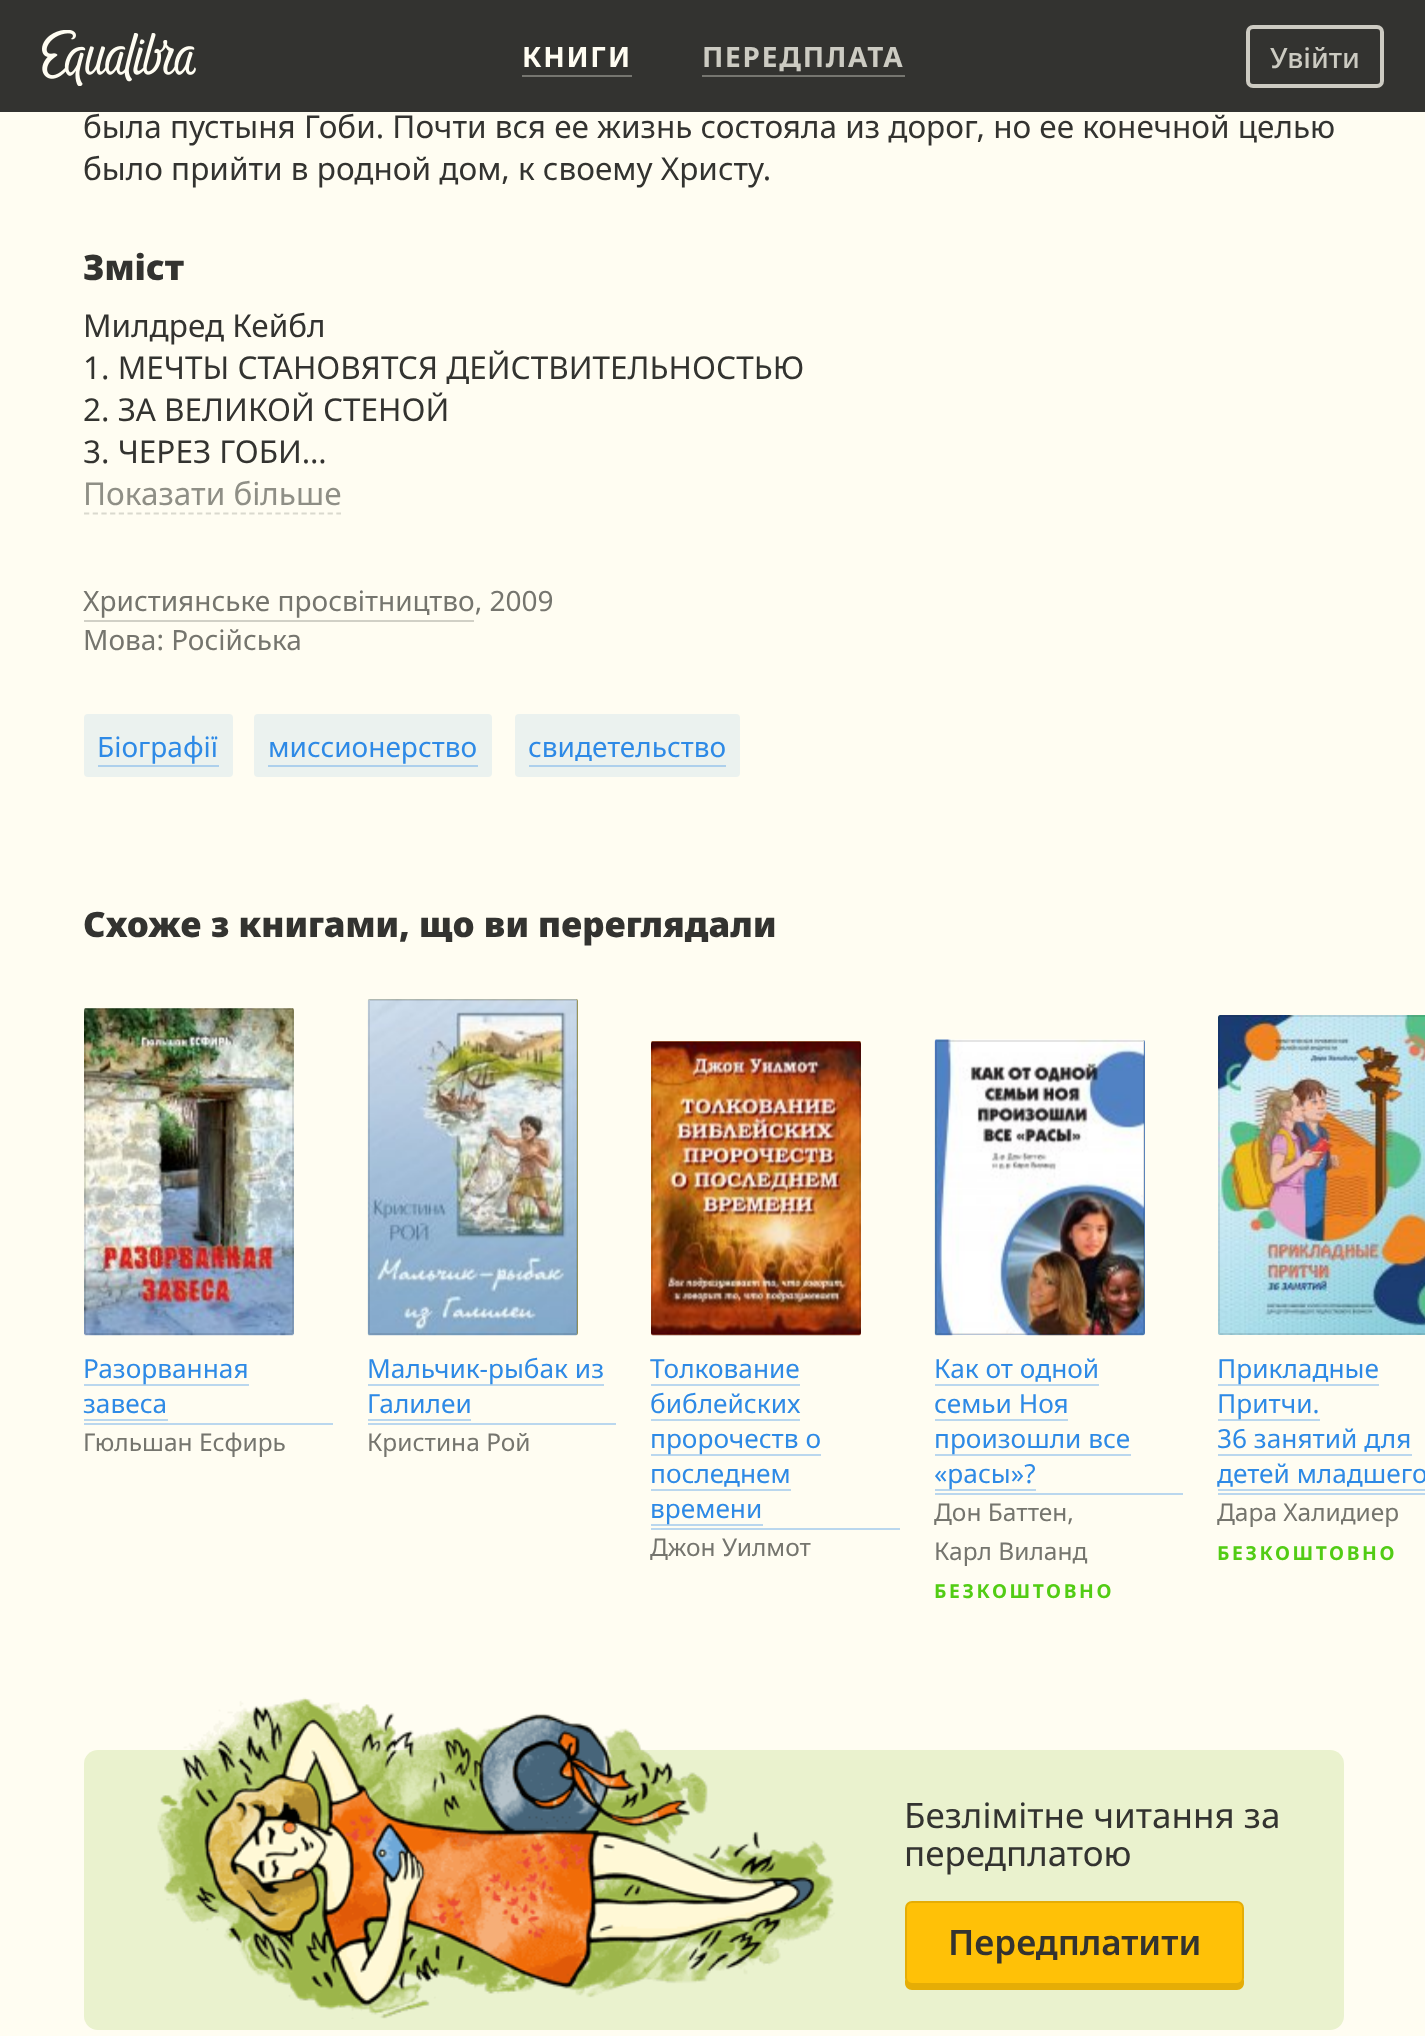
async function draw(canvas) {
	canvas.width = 1425;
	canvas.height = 2036;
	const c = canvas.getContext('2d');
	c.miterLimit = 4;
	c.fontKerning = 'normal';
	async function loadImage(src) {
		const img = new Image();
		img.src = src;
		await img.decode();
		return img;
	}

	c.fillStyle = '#fffdf2';
	c.fillRect(0, 0, 1425, 2036);
	c.fillStyle = '#333330';
	c.fillRect(0, 0, 1425, 112);
	c.drawImage(await loadImage('img1.png'), 42, 30, 154, 56);
	c.fillStyle = '#767670';
	c.fillRect(522, 75, 110, 2);
	c.letterSpacing = '1.75px';
	c.font = 'bold 28px Noto Sans';
	c.fillStyle = '#fffdf2';
	c.fillText('КНИГИ', 522, 67);
	c.fillStyle = '#767670';
	c.fillRect(702, 75, 203, 2);
	c.fillStyle = '#cccbc2';
	c.fillText('ПЕРЕДПЛАТА', 702, 67);
	c.beginPath();
	c.roundRect(1248, 27, 134, 59, 5);
	c.strokeStyle = '#cdcbc2';
	c.lineWidth = 4;
	c.stroke();
	c.letterSpacing = '0px';
	c.font = '500 28px Noto Sans';
	c.fillText('Увійти', 1270, 68);
	c.font = '31.5px Noto Sans';
	c.fillStyle = '#333330';
	c.fillText('была пустыня Гоби. Почти вся ее жизнь состояла из дорог, но ее конечной целью', 83, 138);
	c.fillText('было прийти в родной дом, к своему Христу.', 83, 180);
	c.font = '900 35px Noto Sans';
	c.fillText('Зміст', 83, 280);
	c.font = '31.5px Noto Sans';
	for (const [text, x, y] of [
		['Милдред Кейбл', 83, 337],
		['1. МЕЧТЫ СТАНОВЯТСЯ ДЕЙСТВИТЕЛЬНОСТЬЮ', 83, 379],
		['2. ЗА ВЕЛИКОЙ СТЕНОЙ', 83, 421],
		['3. ЧЕРЕЗ ГОБИ…', 83, 463],
	]) {
		c.fillText(text, x, y);
	}
	c.fillStyle = '#8f8f86';
	c.fillText('Показати більше', 83, 505);
	c.beginPath();
	c.moveTo(84, 513.5);
	c.lineTo(341, 513.5);
	c.strokeStyle = '#dad9ce';
	c.lineWidth = 1.8;
	c.setLineDash([5.25, 3.45]);
	c.stroke();
	c.font = '28px Noto Sans';
	c.fillStyle = '#75756e';
	c.fillText('Християнське просвітництво, 2009', 83, 611);
	c.fillStyle = '#d1d0c6';
	c.fillRect(84, 620, 390, 2);
	c.fillStyle = '#75756e';
	c.fillText('Мова: Російська', 83, 650);
	c.fillStyle = '#ebf2ef';
	c.beginPath();
	c.roundRect(84, 714, 149, 63, 4);
	c.fill();
	c.fillStyle = '#2e8ae6';
	c.fillText('Біографії', 97, 757);
	c.fillStyle = '#add0ec';
	c.fillRect(98, 765, 121, 2);
	c.fillStyle = '#ebf2ef';
	c.beginPath();
	c.roundRect(254, 714, 238, 63, 4);
	c.fill();
	c.fillStyle = '#2e8ae6';
	c.fillText('миссионерство', 268, 757);
	c.fillStyle = '#add0ec';
	c.fillRect(268, 765, 210, 2);
	c.fillStyle = '#ebf2ef';
	c.beginPath();
	c.roundRect(515, 714, 225, 63, 4);
	c.fill();
	c.fillStyle = '#2e8ae6';
	c.fillText('свидетельство', 528, 757);
	c.fillStyle = '#add0ec';
	c.fillRect(529, 765, 197, 2);
	c.font = '900 35px Noto Sans';
	c.fillStyle = '#333330';
	c.fillText('Схоже з книгами, що ви переглядали', 83, 937);
	c.drawImage(await loadImage('img2.png'), 84, 1008, 210, 328);
	c.beginPath();
	c.roundRect(85, 1009, 208, 325, 1);
	c.strokeStyle = '#0000001a';
	c.lineWidth = 2;
	c.setLineDash([]);
	c.stroke();
	c.fillStyle = '#bad7ee';
	c.fillRect(84, 1384, 165, 2);
	c.font = '26.25px Noto Sans';
	c.fillStyle = '#2e8ae6';
	c.fillText('Разорванная', 83, 1378);
	c.fillText('завеса', 83, 1413);
	c.fillStyle = '#bad7ee';
	c.fillRect(84, 1419, 84, 2);
	c.fillRect(84, 1423, 249, 2);
	c.font = '24.5px Noto Sans';
	c.fillStyle = '#75756e';
	c.fillText('Гюльшан Есфирь', 83, 1451);
	c.fillStyle = '#a69f51';
	c.beginPath();
	c.roundRect(368, 999, 210, 336, 2);
	c.fill();
	c.drawImage(await loadImage('img3.png'), 367, 999, 211, 337);
	c.beginPath();
	c.roundRect(369, 1000, 208, 334, 1);
	c.stroke();
	c.fillStyle = '#bad7ee';
	c.fillRect(368, 1384, 236, 2);
	c.font = '26.25px Noto Sans';
	c.fillStyle = '#2e8ae6';
	c.fillText('Мальчик-рыбак из', 367, 1378);
	c.fillText('Галилеи', 367, 1413);
	c.fillStyle = '#bad7ee';
	c.fillRect(368, 1419, 103, 2);
	c.fillRect(368, 1423, 248, 2);
	c.font = '24.5px Noto Sans';
	c.fillStyle = '#75756e';
	c.fillText('Кристина Рой', 367, 1451);
	c.fillStyle = '#e9a660';
	c.beginPath();
	c.roundRect(651, 1041, 210, 294, 2);
	c.fill();
	c.drawImage(await loadImage('img4.png'), 651, 1041, 210, 295);
	c.beginPath();
	c.roundRect(652, 1042, 208, 292, 1);
	c.stroke();
	c.font = '26.25px Noto Sans';
	c.fillStyle = '#2e8ae6';
	c.fillText('Толкование', 650, 1378);
	c.fillStyle = '#bad7ee';
	c.fillRect(651, 1384, 149, 2);
	c.fillStyle = '#2e8ae6';
	c.fillText('библейских', 650, 1413);
	c.fillStyle = '#bad7ee';
	c.fillRect(651, 1419, 149, 2);
	c.fillRect(651, 1454, 170, 2);
	c.fillStyle = '#2e8ae6';
	c.fillText('пророчеств о', 650, 1448);
	c.fillText('последнем', 650, 1483);
	c.fillStyle = '#bad7ee';
	c.fillRect(651, 1489, 140, 2);
	c.fillRect(651, 1524, 112, 2);
	c.fillStyle = '#2e8ae6';
	c.fillText('времени', 650, 1518);
	c.fillStyle = '#bad7ee';
	c.fillRect(651, 1528, 249, 2);
	c.font = '24.5px Noto Sans';
	c.fillStyle = '#75756e';
	c.fillText('Джон Уилмот', 650, 1556);
	c.fillStyle = '#5183c8';
	c.beginPath();
	c.roundRect(935, 1040, 210, 295, 2);
	c.fill();
	c.drawImage(await loadImage('img5.png'), 934, 1039, 211, 297);
	c.beginPath();
	c.roundRect(936, 1041, 208, 293, 1);
	c.stroke();
	c.font = '26.25px Noto Sans';
	c.fillStyle = '#2e8ae6';
	c.fillText('Как от одной', 934, 1378);
	c.fillStyle = '#bad7ee';
	c.fillRect(935, 1384, 164, 2);
	c.fillStyle = '#2e8ae6';
	c.fillText('семьи Ноя', 934, 1413);
	c.fillStyle = '#bad7ee';
	c.fillRect(935, 1419, 133, 2);
	c.fillRect(935, 1454, 196, 2);
	c.fillStyle = '#2e8ae6';
	c.fillText('произошли все', 934, 1448);
	c.fillStyle = '#bad7ee';
	c.fillRect(935, 1489, 101, 2);
	c.fillStyle = '#2e8ae6';
	c.fillText('«расы»?', 934, 1483);
	c.fillStyle = '#bad7ee';
	c.fillRect(935, 1493, 248, 2);
	c.font = '24.5px Noto Sans';
	c.fillStyle = '#75756e';
	c.fillText('Дон Баттен,', 934, 1521);
	c.fillText('Карл Виланд', 934, 1560);
	c.letterSpacing = '2.6px';
	c.font = 'bold 19.25px Noto Sans';
	c.fillStyle = '#52cc14';
	c.fillText('БЕЗКОШТОВНО', 934, 1598);
	c.drawImage(await loadImage('img6.png'), 1218, 1015, 207, 320);
	c.beginPath();
	c.roundRect(1219, 1016, 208, 318, 1);
	c.stroke();
	c.fillStyle = '#bad7ee';
	c.fillRect(1218, 1384, 161, 2);
	c.letterSpacing = '0px';
	c.font = '26.25px Noto Sans';
	c.fillStyle = '#2e8ae6';
	c.fillText('Прикладные', 1217, 1378);
	c.fillStyle = '#bad7ee';
	c.fillRect(1218, 1419, 102, 2);
	c.fillStyle = '#2e8ae6';
	c.fillText('Притчи.', 1217, 1413);
	c.fillText('36 занятий для', 1217, 1448);
	c.fillStyle = '#bad7ee';
	c.fillRect(1218, 1454, 194, 2);
	c.fillStyle = '#2e8ae6';
	c.fillText('детей младшего', 1217, 1483);
	c.fillStyle = '#bad7ee';
	c.fillRect(1218, 1489, 207, 2);
	c.fillRect(1218, 1493, 207, 2);
	c.font = '24.5px Noto Sans';
	c.fillStyle = '#75756e';
	c.fillText('Дара Халидиер', 1217, 1521);
	c.letterSpacing = '2.6px';
	c.font = 'bold 19.25px Noto Sans';
	c.fillStyle = '#52cc14';
	c.fillText('БЕЗКОШТОВНО', 1217, 1560);
	c.fillStyle = '#eaf2ce';
	c.beginPath();
	c.roundRect(84, 1750, 1260, 280, 14);
	c.fill();
	c.drawImage(await loadImage('img7.png'), 157, 1697, 678, 322);
	c.letterSpacing = '0px';
	c.font = '35px Noto Sans';
	c.fillStyle = '#333330';
	c.fillText('Безлімітне читання за', 904, 1828);
	c.fillText('передплатою', 904, 1866);
	c.fillStyle = '#e5ad06';
	c.beginPath();
	c.moveTo(905, 1979);
	c.lineTo(905, 1983);
	c.bezierCurveTo(905, 1987, 908, 1990, 912, 1990);
	c.lineTo(1237, 1990);
	c.bezierCurveTo(1241, 1990, 1244, 1987, 1244, 1983);
	c.lineTo(1244, 1979);
	c.bezierCurveTo(1243, 1982, 1240, 1984, 1237, 1984);
	c.lineTo(912, 1984);
	c.bezierCurveTo(909, 1984, 906, 1982, 905, 1979);
	c.closePath();
	c.fill();
	c.fillStyle = '#ffc107';
	c.beginPath();
	c.roundRect(905, 1901, 339, 84, 7);
	c.fill();
	c.beginPath();
	c.roundRect(906, 1902, 337, 82, 6);
	c.stroke();
	c.font = '600 35px Noto Sans';
	c.fillStyle = '#333330';
	c.fillText('Передплатити', 948, 1955);
}

draw(document.querySelector('canvas'));
